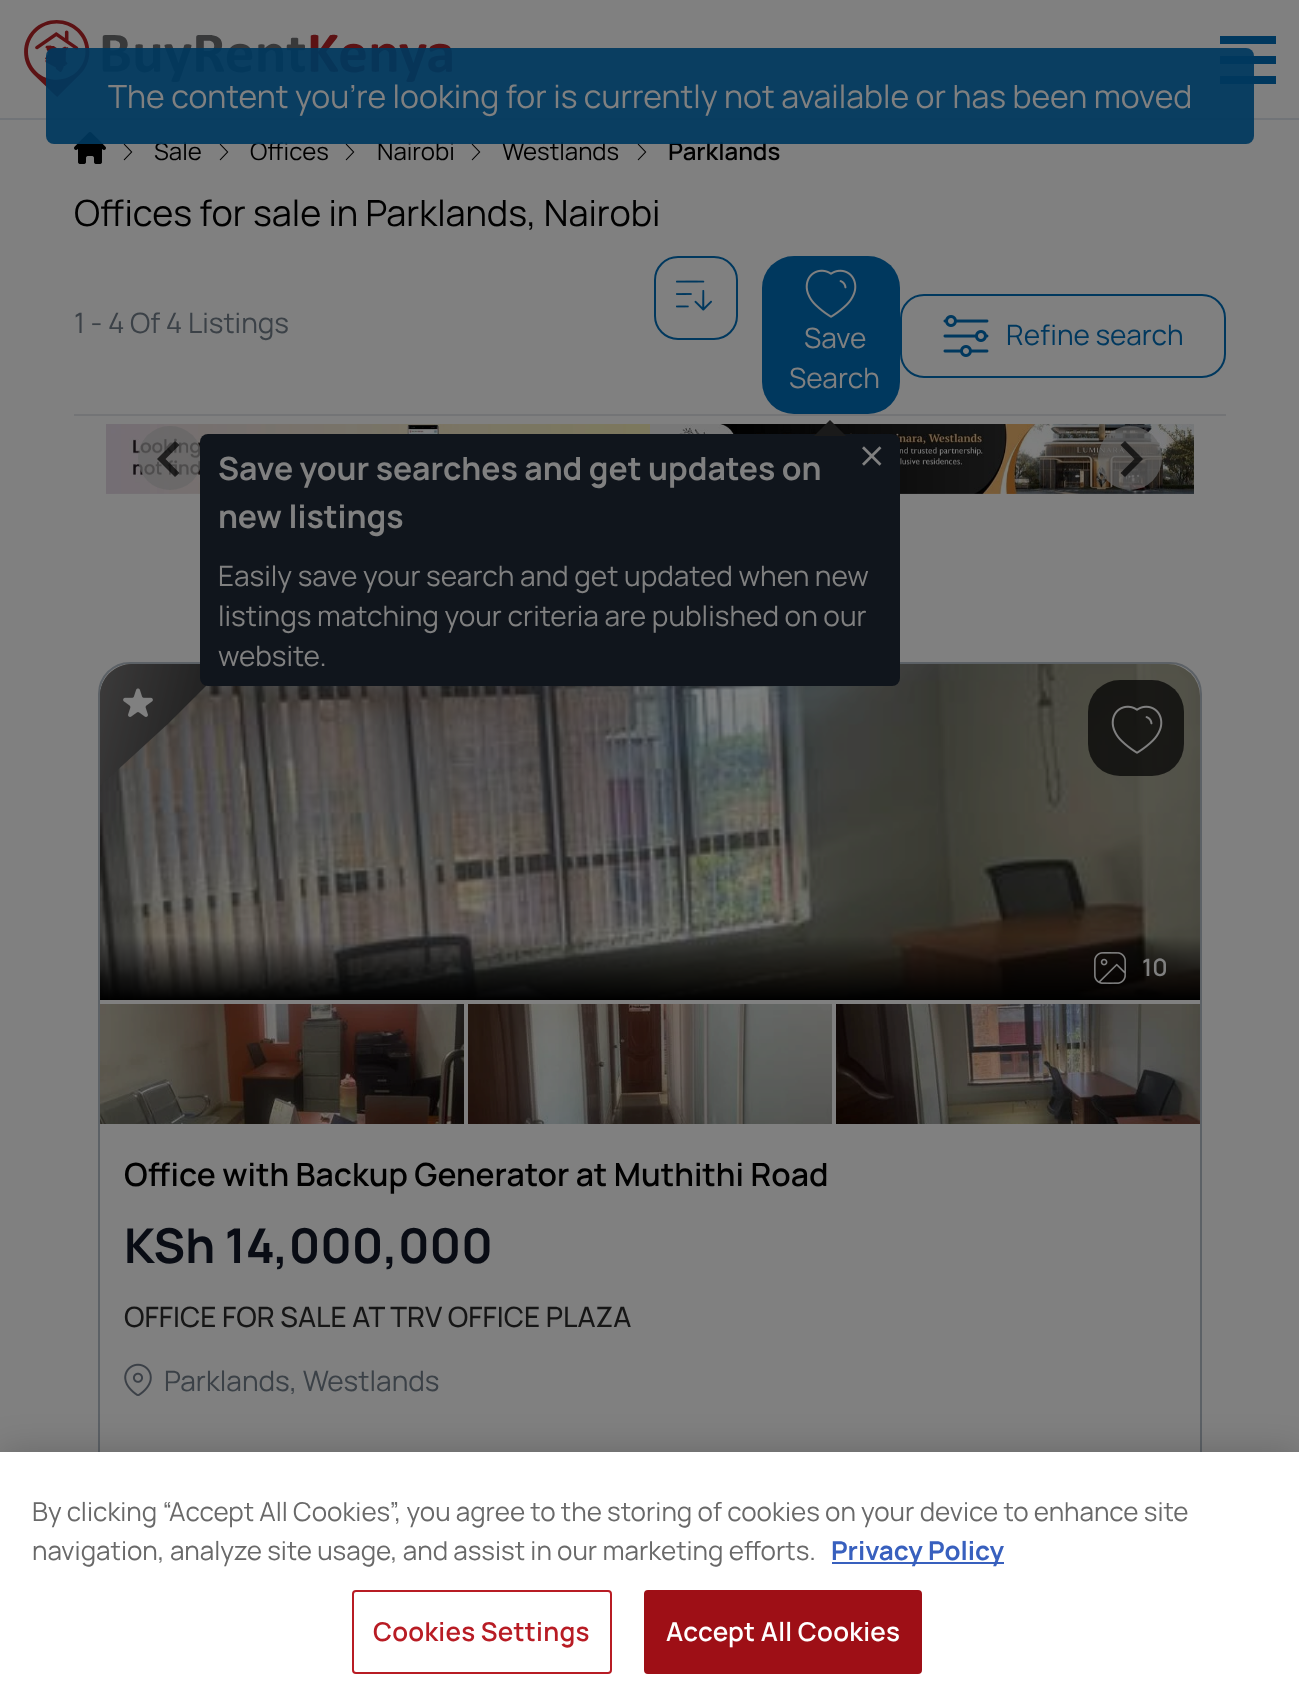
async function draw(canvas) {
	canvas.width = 1299;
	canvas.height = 1706;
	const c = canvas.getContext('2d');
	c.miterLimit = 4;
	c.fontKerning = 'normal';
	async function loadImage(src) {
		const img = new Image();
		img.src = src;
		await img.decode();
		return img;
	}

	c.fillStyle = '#808080';
	c.fillRect(0, 0, 1299, 1706);
	c.fillStyle = '#717478';
	c.fillRect(0, 118, 1299, 2);
	c.drawImage(await loadImage('img1.png'), 24, 20, 428, 77);
	c.save();
	c.beginPath();
	c.rect(1220, 36, 56, 48);
	c.clip();
	c.fillStyle = '#00385e';
	c.beginPath();
	c.moveTo(1220, 84);
	c.lineTo(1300, 84);
	c.lineTo(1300, 76);
	c.lineTo(1220, 76);
	c.closePath();
	c.moveTo(1220, 64);
	c.lineTo(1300, 64);
	c.lineTo(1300, 56);
	c.lineTo(1220, 56);
	c.closePath();
	c.moveTo(1220, 36);
	c.lineTo(1220, 44);
	c.lineTo(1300, 44);
	c.lineTo(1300, 36);
	c.closePath();
	c.fill();
	c.restore();
	c.drawImage(await loadImage('img2.png'), 74, 132, 32, 32);
	c.drawImage(await loadImage('img3.png'), 123, 143, 10, 18);
	c.font = '24px Manrope';
	c.fillStyle = '#000';
	c.fillText('Sale', 154, 160);
	c.drawImage(await loadImage('img3.png'), 219, 143, 10, 18);
	c.fillText('Offices', 250, 160);
	c.drawImage(await loadImage('img3.png'), 345, 143, 10, 18);
	c.fillText('Nairobi', 377, 160);
	c.drawImage(await loadImage('img3.png'), 471, 143, 10, 18);
	c.fillText('Westlands', 502, 160);
	c.drawImage(await loadImage('img3.png'), 637, 143, 10, 18);
	c.font = '600 24px Manrope';
	c.fillText('Parklands', 668, 160);
	c.fillStyle = '#00385eeb';
	c.beginPath();
	c.roundRect(46, 48, 1208, 96, 8);
	c.fill();
	c.font = '32px Manrope';
	c.fillStyle = '#808080';
	c.fillText('The content you’re looking for is currently not available or has been moved', 108, 108);
	c.fillStyle = '#737476';
	c.fillRect(74, 414, 1152, 2);
	c.font = '36px Manrope';
	c.fillStyle = '#000';
	c.fillText('Offices for sale in Parklands, Nairobi', 74, 226);
	c.font = '28px Manrope';
	c.fillStyle = '#3b4147';
	c.fillText('1 - 4 Of 4 Listings', 74, 333);
	c.beginPath();
	c.roundRect(655, 257, 82, 82, 23);
	c.strokeStyle = '#00385e';
	c.lineWidth = 2;
	c.stroke();
	c.drawImage(await loadImage('img4.png'), 676, 280, 36, 31);
	c.fillStyle = '#00385e';
	c.beginPath();
	c.roundRect(762, 256, 138, 158, 32);
	c.fill();
	c.drawImage(await loadImage('img5.png'), 805, 269, 52, 49);
	c.fillStyle = '#808080';
	c.fillText('Save', 804, 348);
	c.fillText('Search', 789, 388);
	c.drawImage(await loadImage('img8.png'), 106, 424, 544, 70);
	c.drawImage(await loadImage('img9.png'), 650, 424, 544, 70);
	c.fillStyle = '#666666b3';
	c.beginPath();
	c.arc(170, 458, 32, 0, 2 * Math.PI);
	c.fill();
	c.beginPath();
	c.roundRect(99, 663, 1102, 1002, 31);
	c.strokeStyle = '#5c6166';
	c.stroke();
	c.fillStyle = '#808080';
	c.beginPath();
	c.roundRect(100, 664, 1100, 1000, 32);
	c.fill();
	c.drawImage(await loadImage('img12.png'), 100, 664, 1100, 336);
	c.drawImage(await loadImage('img10.png'), 100, 664, 107, 121);
	c.fillStyle = '#10151c';
	c.beginPath();
	c.roundRect(200, 434, 700, 252, 8);
	c.fill();
	c.fillStyle = '#1a1a1a';
	c.beginPath();
	c.moveTo(846, 436);
	c.lineTo(814, 436);
	c.lineTo(830, 420);
	c.closePath();
	c.fill();
	c.font = 'bold 32px Manrope';
	c.fillStyle = '#808080';
	c.fillText('Save your searches and get updates on', 218, 480);
	c.fillText('new listings', 218, 528);
	c.drawImage(await loadImage('img6.png'), 862, 446, 20, 20);
	c.font = '28px Manrope';
	for (const [text, x, y] of [
		['Easily save your search and get updated when new', 218, 586],
		['listings matching your criteria are published on our', 218, 626],
		['website.', 218, 666],
	]) {
		c.fillText(text, x, y);
	}
	c.beginPath();
	c.roundRect(901, 295, 324, 82, 23);
	c.strokeStyle = '#00385e';
	c.stroke();
	c.drawImage(await loadImage('img7.png'), 943, 315, 46, 42);
	c.fillStyle = '#00385e';
	c.fillText('Refine search', 1006, 345);
	c.fillStyle = '#000000b3';
	c.beginPath();
	c.moveTo(175, 441);
	c.lineTo(179.5, 445);
	c.lineTo(165.5, 459);
	c.lineTo(179.5, 473);
	c.lineTo(175, 477);
	c.lineTo(157, 459);
	c.closePath();
	c.fill();
	c.fillStyle = '#666666b3';
	c.beginPath();
	c.arc(1130, 458, 32, 0, 2 * Math.PI);
	c.fill();
	c.fillStyle = '#000000b3';
	c.beginPath();
	c.moveTo(1125, 441);
	c.lineTo(1120.5, 445);
	c.lineTo(1134.5, 459);
	c.lineTo(1120.5, 473);
	c.lineTo(1125, 477);
	c.lineTo(1143, 459);
	c.closePath();
	c.fill();
	c.beginPath();
	c.roundRect(1088, 680, 96, 96, 32);
	c.fill();
	c.drawImage(await loadImage('img11.png'), 1111, 705, 52, 49);
	c.drawImage(await loadImage('img13.png'), 100, 1004, 364, 120);
	c.drawImage(await loadImage('img14.png'), 468, 1004, 364, 120);
	c.drawImage(await loadImage('img15.png'), 836, 1004, 364, 120);
	c.drawImage(await loadImage('img16.png'), 1094, 952, 32, 32);
	c.font = '600 24px Manrope';
	c.fillStyle = '#808080';
	c.fillText('10', 1142, 976);
	c.font = '600 32px Manrope';
	c.fillStyle = '#000';
	c.fillText('Office with Backup Generator at Muthithi Road', 124, 1186);
	c.font = 'bold 48px Manrope';
	c.fillStyle = '#090c14';
	c.fillText('KSh 14,000,000', 124, 1263);
	c.font = '500 28px Manrope';
	c.fillStyle = '#161616';
	c.fillText('OFFICE FOR SALE AT TRV OFFICE PLAZA', 124, 1327);
	c.drawImage(await loadImage('img17.png'), 124, 1363, 28, 33);
	c.font = '28px Manrope';
	c.fillStyle = '#3b4147';
	c.fillText('Parklands, Westlands', 164, 1391);
	c.fillStyle = '#00000033';
	c.filter = 'blur(18px)';
	c.beginPath();
	c.rect(0, 1452, 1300, 254);
	c.fill();
	c.filter = 'none';
	c.fillStyle = '#fff';
	c.fillRect(0, 1452, 1299, 254);
	c.font = '26px Manrope';
	c.fillStyle = '#696969';
	c.fillText('By clicking “Accept All Cookies”, you agree to the storing of cookies on your device to enhance site', 32, 1521);
	c.fillText('navigation, analyze site usage, and assist in our marketing efforts.', 32, 1560);
	c.fillStyle = '#3860be';
	c.fillRect(832, 1562, 172, 2);
	c.font = 'bold 26px Manrope';
	c.fillText('Privacy Policy', 831, 1560);
	c.beginPath();
	c.roundRect(353, 1591, 258, 82, 3);
	c.strokeStyle = '#b81c24';
	c.stroke();
	c.letterSpacing = '0.25px';
	c.font = '600 26px Manrope';
	c.fillStyle = '#b81c24';
	c.fillText('Cookies Settings', 373, 1641);
	c.fillStyle = '#9e0f16';
	c.beginPath();
	c.roundRect(645, 1591, 276, 82, 3);
	c.fill();
	c.strokeStyle = '#9e0f16';
	c.stroke();
	c.fillStyle = '#fff';
	c.fillText('Accept All Cookies', 666, 1641);
}

draw(document.querySelector('canvas'));
